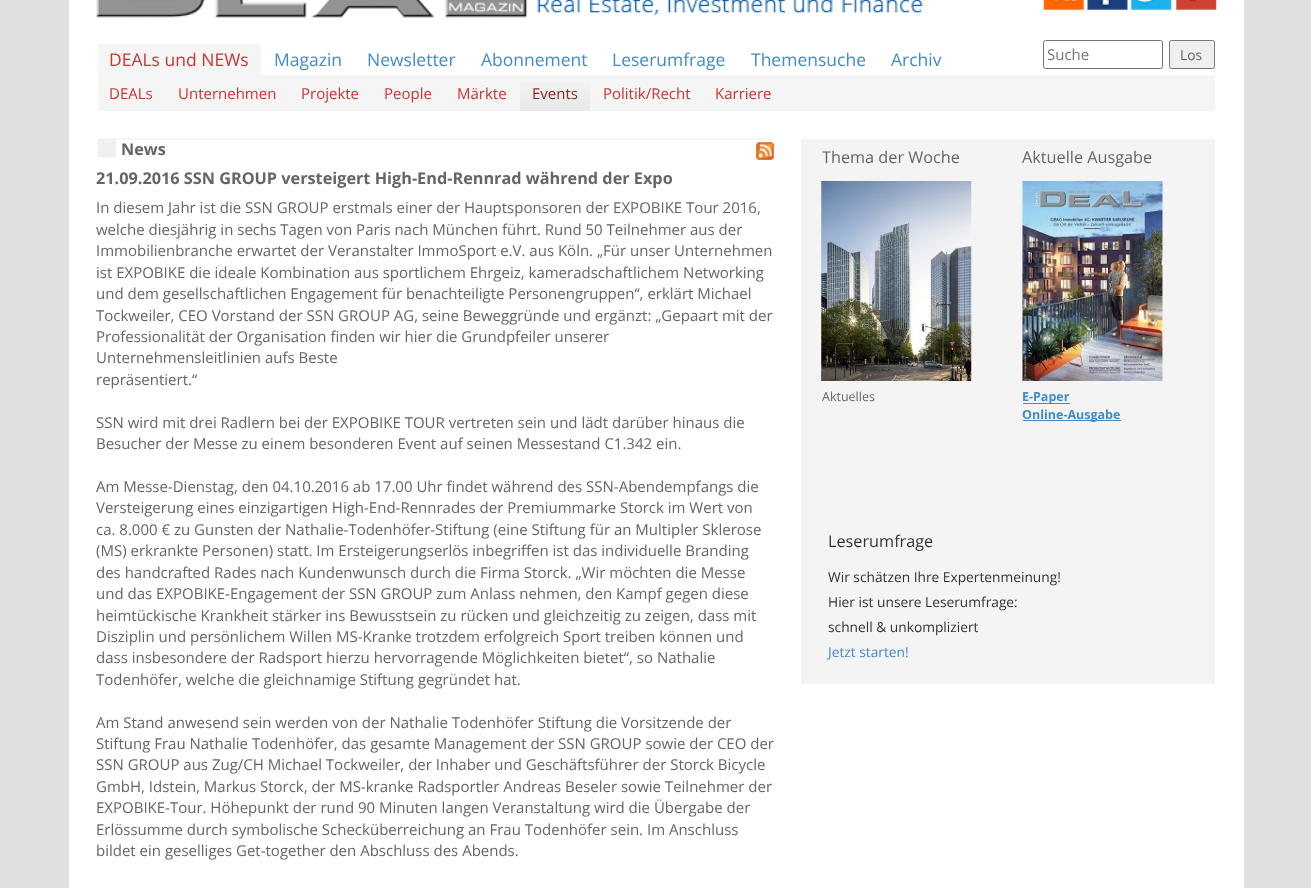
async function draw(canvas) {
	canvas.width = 1311;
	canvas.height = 888;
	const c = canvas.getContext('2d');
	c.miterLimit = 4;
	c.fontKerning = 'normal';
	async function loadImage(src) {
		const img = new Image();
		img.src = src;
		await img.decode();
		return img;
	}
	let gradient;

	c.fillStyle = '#e0e0e0';
	c.fillRect(0, 0, 1311, 888);
	c.fillStyle = '#fff';
	c.fillRect(69, 0, 1175, 888);
	c.drawImage(await loadImage('img1.png'), 96, 0, 827, 18);
	c.drawImage(await loadImage('img2.png'), 1043, 0, 41, 10);
	c.drawImage(await loadImage('img3.png'), 1087, 0, 41, 10);
	c.drawImage(await loadImage('img4.png'), 1131, 0, 41, 10);
	c.drawImage(await loadImage('img5.png'), 1176, 0, 41, 10);
	c.fillStyle = '#f5f5f5';
	c.fillRect(98, 44, 163, 31);
	c.font = '17.5px Open Sans';
	c.fillStyle = '#cb3333';
	c.fillText('DEALs und NEWs', 109, 66);
	c.fillStyle = '#f5f5f5';
	c.fillRect(98, 75, 1117, 36);
	c.font = '15px Open Sans';
	c.fillStyle = '#cb3333';
	for (const [text, x, y] of [
		['DEALs', 109, 99],
		['Unternehmen', 178, 99],
		['Projekte', 301, 99],
		['People', 384, 99],
		['Märkte', 457, 99],
	]) {
		c.fillText(text, x, y);
	}
	gradient = c.createLinearGradient(555, 75, 555, 111);
	gradient.addColorStop(0, '#f5f5f5');
	gradient.addColorStop(1, '#e8e8e8');
	c.fillStyle = gradient;
	c.fillRect(520, 82, 70, 29);
	c.fillStyle = '#8e2424';
	c.fillText('Events', 532, 99);
	c.fillStyle = '#cb3333';
	c.fillText('Politik/Recht', 603, 99);
	c.fillText('Karriere', 715, 99);
	c.font = '17.5px Open Sans';
	c.fillStyle = '#428bca';
	for (const [text, x, y] of [
		['Magazin', 274, 66],
		['Newsletter', 367, 66],
		['Abonnement', 481, 66],
		['Leserumfrage', 612, 66],
		['Themensuche', 751, 66],
		['Archiv', 891, 66],
	]) {
		c.fillText(text, x, y);
	}
	c.beginPath();
	c.roundRect(1043.5, 40.5, 119, 28, 2);
	c.strokeStyle = '#767676';
	c.stroke();
	c.save();
	c.beginPath();
	c.rect(1048, 44, 110, 21);
	c.clip();
	c.font = '15px Open Sans';
	c.fillStyle = '#757575';
	c.fillText('Suche', 1047, 60);
	c.restore();
	c.fillStyle = '#efefef';
	c.beginPath();
	c.roundRect(1169.5, 40.5, 45, 28, 2);
	c.fill();
	c.stroke();
	c.font = '13.75px Open Sans';
	c.fillStyle = '#656565';
	c.fillText('Los', 1180, 60);
	c.drawImage(await loadImage('img6.png'), 97, 138, 677, 20);
	c.font = 'bold 16.25px Open Sans';
	c.fillText('News', 121, 155);
	c.drawImage(await loadImage('img7.png'), 756, 142, 18, 18);
	c.fillText('21.09.2016 SSN GROUP versteigert High-End-Rennrad während der Expo', 96, 184);
	c.font = '15px Open Sans';
	for (const [text, x, y] of [
		['In diesem Jahr ist die SSN GROUP erstmals einer der Hauptsponsoren der EXPOBIKE Tour 2016,', 96, 213],
		['welche diesjährig in sechs Tagen von Paris nach München führt. Rund 50 Teilnehmer aus der', 96, 235],
		['Immobilienbranche erwartet der Veranstalter ImmoSport e.V. aus Köln. „Für unser Unternehmen', 96, 256],
		['ist EXPOBIKE die ideale Kombination aus sportlichem Ehrgeiz, kameradschaftlichem Networking', 96, 278],
		['und dem gesellschaftlichen Engagement für benachteiligte Personengruppen“, erklärt Michael', 96, 299],
		['Tockweiler, CEO Vorstand der SSN GROUP AG, seine Beweggründe und ergänzt: „Gepaart mit der', 96, 321],
		['Professionalität der Organisation finden wir hier die Grundpfeiler unserer', 96, 342],
		['Unternehmensleitlinien aufs Beste', 96, 363],
		['repräsentiert.“', 96, 385],
		['SSN wird mit drei Radlern bei der EXPOBIKE TOUR vertreten sein und lädt darüber hinaus die', 96, 428],
		['Besucher der Messe zu einem besonderen Event auf seinen Messestand C1.342 ein.', 96, 449],
		['Am Messe-Dienstag, den 04.10.2016 ab 17.00 Uhr findet während des SSN-Abendempfangs die', 96, 492],
		['Versteigerung eines einzigartigen High-End-Rennrades der Premiummarke Storck im Wert von', 96, 513],
		['ca. 8.000 € zu Gunsten der Nathalie-Todenhöfer-Stiftung (eine Stiftung für an Multipler Sklerose', 96, 535],
		['(MS) erkrankte Personen) statt. Im Ersteigerungserlös inbegriffen ist das individuelle Branding', 96, 556],
		['des handcrafted Rades nach Kundenwunsch durch die Firma Storck. „Wir möchten die Messe', 96, 578],
		['und das EXPOBIKE-Engagement der SSN GROUP zum Anlass nehmen, den Kampf gegen diese', 96, 599],
		['heimtückische Krankheit stärker ins Bewusstsein zu rücken und gleichzeitig zu zeigen, dass mit', 96, 621],
		['Disziplin und persönlichem Willen MS-Kranke trotzdem erfolgreich Sport treiben können und', 96, 642],
		['dass insbesondere der Radsport hierzu hervorragende Möglichkeiten bietet“, so Nathalie', 96, 663],
		['Todenhöfer, welche die gleichnamige Stiftung gegründet hat.', 96, 685],
		['Am Stand anwesend sein werden von der Nathalie Todenhöfer Stiftung die Vorsitzende der', 96, 728],
		['Stiftung Frau Nathalie Todenhöfer, das gesamte Management der SSN GROUP sowie der CEO der', 96, 749],
		['SSN GROUP aus Zug/CH Michael Tockweiler, der Inhaber und Geschäftsführer der Storck Bicycle', 96, 770],
		['GmbH, Idstein, Markus Storck, der MS-kranke Radsportler Andreas Beseler sowie Teilnehmer der', 96, 792],
		['EXPOBIKE-Tour. Höhepunkt der rund 90 Minuten langen Veranstaltung wird die Übergabe der', 96, 813],
		['Erlössumme durch symbolische Schecküberreichung an Frau Todenhöfer sein. Im Anschluss', 96, 835],
		['bildet ein geselliges Get-together den Abschluss des Abends.', 96, 856],
	]) {
		c.fillText(text, x, y);
	}
	c.fillStyle = '#f4f4f4';
	c.fillRect(801, 139, 414, 545);
	c.font = '16.25px Open Sans';
	c.fillStyle = '#656565';
	c.fillText('Thema der Woche', 822, 163);
	c.drawImage(await loadImage('img8.png'), 821, 181, 151, 200);
	c.font = '12.5px Open Sans';
	c.fillText('Aktuelles', 822, 401);
	c.font = '16.25px Open Sans';
	c.fillText('Aktuelle Ausgabe', 1022, 163);
	c.drawImage(await loadImage('img9.png'), 1022, 181, 141, 200);
	c.fillStyle = '#428bca';
	c.fillRect(1023, 403, 47, 1);
	c.font = 'bold 12.5px Open Sans';
	c.fillText('E-Paper', 1022, 401);
	c.fillRect(1023, 420, 98, 1);
	c.fillText('Online-Ausgabe', 1022, 419);
	c.font = '16.25px Open Sans';
	c.fillStyle = '#333';
	c.fillText('Leserumfrage', 828, 547);
	c.font = '13.75px Open Sans';
	for (const [text, x, y] of [
		['Wir schätzen Ihre Expertenmeinung!', 828, 582],
		['Hier ist unsere Leserumfrage:', 828, 607],
		['schnell & unkompliziert', 828, 632],
	]) {
		c.fillText(text, x, y);
	}
	c.fillStyle = '#428bca';
	c.fillText('Jetzt starten!', 828, 657);
}

draw(document.querySelector('canvas'));
